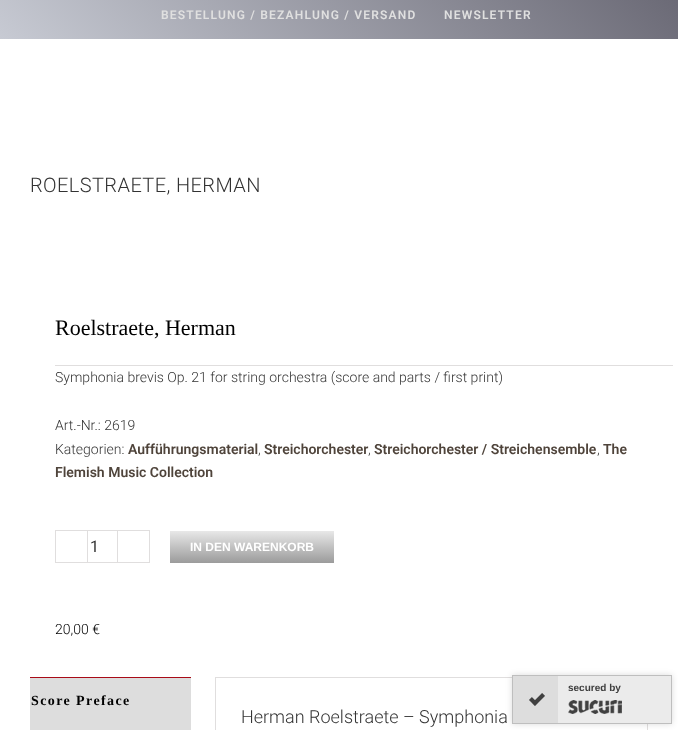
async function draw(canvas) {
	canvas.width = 678;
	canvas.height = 730;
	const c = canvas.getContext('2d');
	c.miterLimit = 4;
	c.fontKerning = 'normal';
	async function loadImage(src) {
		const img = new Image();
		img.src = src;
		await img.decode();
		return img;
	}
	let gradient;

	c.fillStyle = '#fff';
	c.fillRect(0, 0, 678, 730);
	gradient = c.createLinearGradient(518, -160, 160, 199);
	gradient.addColorStop(0, '#6b6a76');
	gradient.addColorStop(1, '#c7cad3');
	c.fillStyle = gradient;
	c.fillRect(0, 0, 678, 39);
	c.letterSpacing = '1.2px';
	c.font = '600 12px Roboto';
	c.fillStyle = '#e0e0e0';
	c.fillText('BESTELLUNG / BEZAHLUNG / VERSAND', 161, 19);
	c.fillText('NEWSLETTER', 444, 19);
	c.letterSpacing = '0.4px';
	c.font = '300 20px Roboto';
	c.fillStyle = '#333';
	c.fillText('ROELSTRAETE, HERMAN', 30, 192);
	c.letterSpacing = '0px';
	c.font = '22px Liberation Serif';
	c.fillStyle = '#000';
	c.fillText('Roelstraete, Herman', 55, 335);
	c.fillStyle = '#e0dede';
	c.fillRect(55, 365, 618, 1);
	c.font = '300 14px Roboto';
	c.fillStyle = '#333';
	for (const [text, x, y] of [
		['Symphonia brevis Op. 21 for string orchestra (score and parts / first print)', 55, 382],
		['Art.-Nr.: 2619', 55, 430],
		['Kategorien:', 55, 454],
	]) {
		c.fillText(text, x, y);
	}
	c.font = '600 14px Roboto';
	c.fillStyle = '#4f443b';
	c.fillText('Aufführungsmaterial', 128, 454);
	c.font = '300 14px Roboto';
	c.fillStyle = '#333';
	c.fillText(',', 258, 454);
	c.font = '600 14px Roboto';
	c.fillStyle = '#4f443b';
	c.fillText('Streichorchester', 264, 454);
	c.font = '300 14px Roboto';
	c.fillStyle = '#333';
	c.fillText(',', 368, 454);
	c.font = '600 14px Roboto';
	c.fillStyle = '#4f443b';
	c.fillText('Streichorchester / Streichensemble', 374, 454);
	c.font = '300 14px Roboto';
	c.fillStyle = '#333';
	c.fillText(',', 597, 454);
	c.font = '600 14px Roboto';
	c.fillStyle = '#4f443b';
	c.fillText('The', 603, 454);
	c.fillText('Flemish Music Collection', 55, 477);
	c.strokeStyle = '#e0dede';
	c.strokeRect(55.5, 530.5, 94, 32);
	c.fillStyle = '#e0dede';
	c.fillRect(117, 531, 1, 31);
	c.fillRect(87, 531, 1, 31);
	c.font = '16px Roboto';
	c.fillStyle = '#333';
	c.fillText('1', 90, 552);
	gradient = c.createLinearGradient(252, 531, 252, 563);
	gradient.addColorStop(0, '#e8e8e8');
	gradient.addColorStop(1, '#9b9b9b');
	c.fillStyle = gradient;
	c.fillRect(170, 531, 164, 32);
	c.font = 'bold 12px Liberation Sans';
	c.fillStyle = '#fff';
	c.fillText('IN DEN WARENKORB', 190, 551);
	c.font = '300 14px Roboto';
	c.fillStyle = '#000';
	c.fillText('20,00 €', 55, 634);
	c.fillStyle = '#ddd';
	c.fillRect(30, 678, 161, 52);
	c.fillStyle = '#a80b17';
	c.fillRect(30, 677, 161, 1);
	c.letterSpacing = '1.4px';
	c.font = 'bold 14px Liberation Serif';
	c.fillStyle = '#000';
	c.fillText('Score Preface', 31, 705);
	c.strokeRect(215.5, 677.5, 432, 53);
	c.letterSpacing = '0px';
	c.font = '300 18px Roboto';
	c.fillStyle = '#333';
	c.fillText('Herman Roelstraete – Symphonia', 241, 723);
	c.fillStyle = '#00000024';
	c.filter = 'blur(3px)';
	c.beginPath();
	c.rect(512, 675, 160, 49);
	c.fill();
	c.filter = 'none';
	c.fillStyle = '#ebebeb';
	c.fillRect(558, 676, 113, 47);
	c.strokeStyle = '#bebebe';
	c.strokeRect(512.5, 675.5, 159, 48);
	c.fillStyle = '#ddd';
	c.fillRect(513, 676, 45, 47);
	c.drawImage(await loadImage('img1.png'), 529, 693, 16, 13);
	c.font = 'bold 10px Liberation Sans';
	c.fillStyle = '#3f3f3f';
	c.fillText('secured by', 568, 691);
	c.drawImage(await loadImage('img2.png'), 568, 700, 54, 14);
}

draw(document.querySelector('canvas'));
